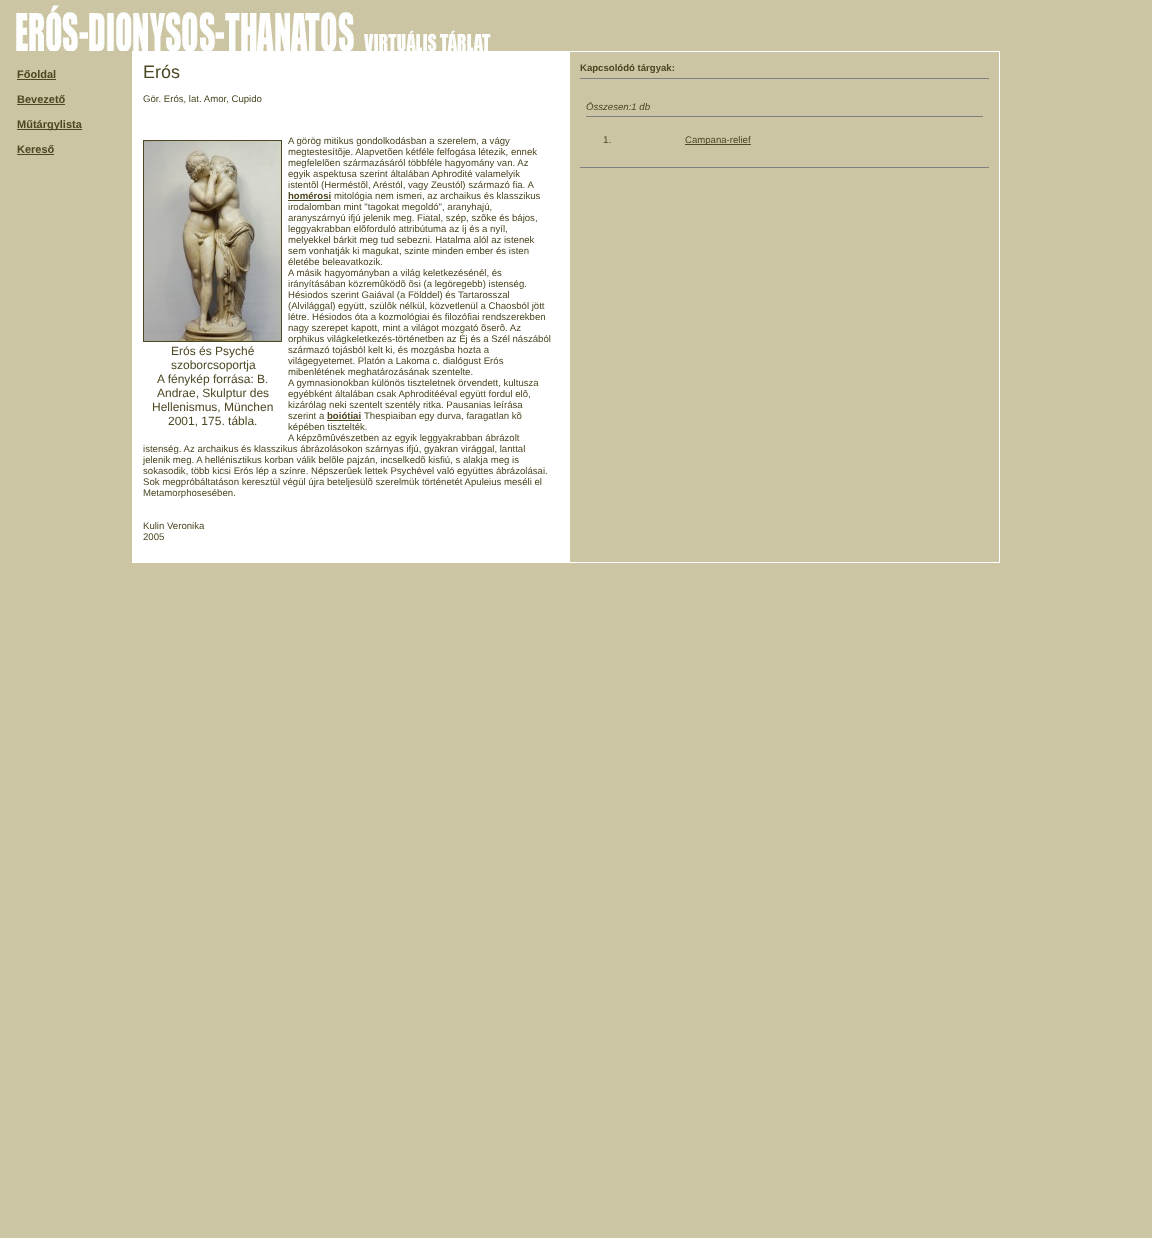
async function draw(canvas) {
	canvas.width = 1152;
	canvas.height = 1238;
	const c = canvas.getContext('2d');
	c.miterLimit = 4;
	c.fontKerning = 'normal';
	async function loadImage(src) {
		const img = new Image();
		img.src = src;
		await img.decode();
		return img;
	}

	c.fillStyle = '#cbc5a4';
	c.fillRect(0, 0, 1152, 1238);
	c.drawImage(await loadImage('img1.png'), 16, 0, 480, 51);
	c.fillStyle = '#fff';
	c.fillRect(132, 51, 868, 512);
	c.font = 'bold 11px Liberation Sans';
	c.fillStyle = '#4d4722';
	c.fillText('Főoldal', 17, 78);
	c.fillRect(17, 79, 39, 1);
	c.fillText('Bevezető', 17, 103);
	c.fillRect(17, 104, 48, 1);
	c.fillRect(17, 129, 65, 1);
	c.fillText('Műtárgylista', 17, 128);
	c.fillText('Kereső', 17, 153);
	c.fillRect(17, 154, 37, 1);
	c.font = '18px Liberation Sans';
	c.fillText('Erós', 143, 78);
	c.font = '9.6px Liberation Sans';
	for (const [text, x, y] of [
		['Gör. Erós, lat. Amor, Cupido', 143, 102],
		['A görög mitikus gondolkodásban a szerelem, a vágy', 288, 144],
		['megtestesítõje. Alapvetõen kétféle felfogása létezik, ennek', 288, 155],
		['megfelelõen származásáról többféle hagyomány van. Az', 288, 166],
		['egyik aspektusa szerint általában Aphrodité valamelyik', 288, 177],
		['istentõl (Herméstõl, Aréstól, vagy Zeustól) származó fia. A', 288, 188],
	]) {
		c.fillText(text, x, y);
	}
	c.font = 'bold 9.6px Liberation Sans';
	c.fillText('homérosi', 288, 199);
	c.fillRect(288, 200, 43, 1);
	c.font = '9.6px Liberation Sans';
	for (const [text, x, y] of [
		['mitológia nem ismeri, az archaikus és klasszikus', 334, 199],
		['irodalomban mint "tagokat megoldó", aranyhajú,', 288, 210],
		['aranyszárnyú ifjú jelenik meg. Fiatal, szép, szõke és bájos,', 288, 221],
		['leggyakrabban elõforduló attribútuma az íj és a nyíl,', 288, 232],
		['melyekkel bárkit meg tud sebezni. Hatalma alól az istenek', 288, 243],
		['sem vonhatják ki magukat, szinte minden ember és isten', 288, 254],
		['életébe beleavatkozik.', 288, 265],
		['A másik hagyományban a világ keletkezésénél, és', 288, 276],
		['irányításában közremûködõ õsi (a legöregebb) istenség.', 288, 287],
		['Hésiodos szerint Gaiával (a Földdel) és Tartarosszal', 288, 298],
		['(Alvilággal) együtt, szülõk nélkül, közvetlenül a Chaosból jött', 288, 309],
		['létre. Hésiodos óta a kozmológiai és filozófiai rendszerekben', 288, 320],
		['nagy szerepet kapott, mint a világot mozgató õserõ. Az', 288, 331],
		['orphikus világkeletkezés-történetben az Éj és a Szél nászából', 288, 342],
	]) {
		c.fillText(text, x, y);
	}
	c.strokeStyle = '#4d4722';
	c.strokeRect(143.5, 140.5, 138, 201);
	c.drawImage(await loadImage('img2.png'), 144, 141, 137, 200);
	c.font = '12px Liberation Sans';
	for (const [text, x, y] of [
		['Erós és Psyché', 171, 355],
		['szoborcsoportja', 171, 369],
		['A fénykép forrása: B.', 157, 383],
		['Andrae, Skulptur des', 157, 397],
		['Hellenismus, München', 152, 411],
		['2001, 175. tábla.', 168, 425],
	]) {
		c.fillText(text, x, y);
	}
	c.font = '9.6px Liberation Sans';
	for (const [text, x, y] of [
		['származó tojásból kelt ki, és mozgásba hozta a', 288, 353],
		['világegyetemet. Platón a Lakoma c. dialógust Erós', 288, 364],
		['mibenlétének meghatározásának szentelte.', 288, 375],
		['A gymnasionokban különös tiszteletnek örvendett, kultusza', 288, 386],
		['egyébként általában csak Aphroditééval együtt fordul elõ,', 288, 397],
		['kizárólag neki szentelt szentély ritka. Pausanias leírása', 288, 408],
		['szerint a', 288, 419],
	]) {
		c.fillText(text, x, y);
	}
	c.font = 'bold 9.6px Liberation Sans';
	c.fillText('boiótiai', 327, 419);
	c.fillRect(327, 420, 34, 1);
	c.font = '9.6px Liberation Sans';
	for (const [text, x, y] of [
		['Thespiaiban egy durva, faragatlan kõ', 364, 419],
		['képében tisztelték.', 288, 430],
		['A képzõmûvészetben az egyik leggyakrabban ábrázolt', 288, 441],
		['istenség. Az archaikus és klasszikus ábrázolásokon szárnyas ifjú, gyakran virággal, lanttal', 143, 452],
		['jelenik meg. A hellénisztikus korban válik belõle pajzán, incselkedõ kisfiú, s alakja meg is', 143, 463],
		['sokasodik, több kicsi Erós lép a színre. Népszerûek lettek Psychével való együttes ábrázolásai.', 143, 474],
		['Sok megpróbáltatáson keresztül végül újra beteljesülõ szerelmük történetét Apuleius meséli el', 143, 485],
		['Metamorphosesében.', 143, 496],
		['Kulin Veronika', 143, 529],
		['2005', 143, 540],
	]) {
		c.fillText(text, x, y);
	}
	c.fillStyle = '#cbc5a4';
	c.fillRect(570, 52, 429, 510);
	c.font = 'bold 9.6px Liberation Sans';
	c.fillStyle = '#4d4722';
	c.fillText('Kapcsolódó tárgyak:', 580, 71);
	c.fillStyle = '#808080';
	c.fillRect(580, 78, 409, 1);
	c.font = 'italic 9.6px Liberation Sans';
	c.fillStyle = '#4d4722';
	c.fillText('Összesen:1 db', 586, 110);
	c.fillStyle = '#808080';
	c.fillRect(586, 116, 397, 1);
	c.font = '10px Liberation Sans';
	c.fillStyle = '#4d4722';
	c.fillText('1.', 603, 143);
	c.fillRect(685, 144, 66, 1);
	c.font = '9.6px Liberation Sans';
	c.fillText('Campana-relief', 685, 143);
	c.fillStyle = '#808080';
	c.fillRect(580, 167, 409, 1);
}

draw(document.querySelector('canvas'));
